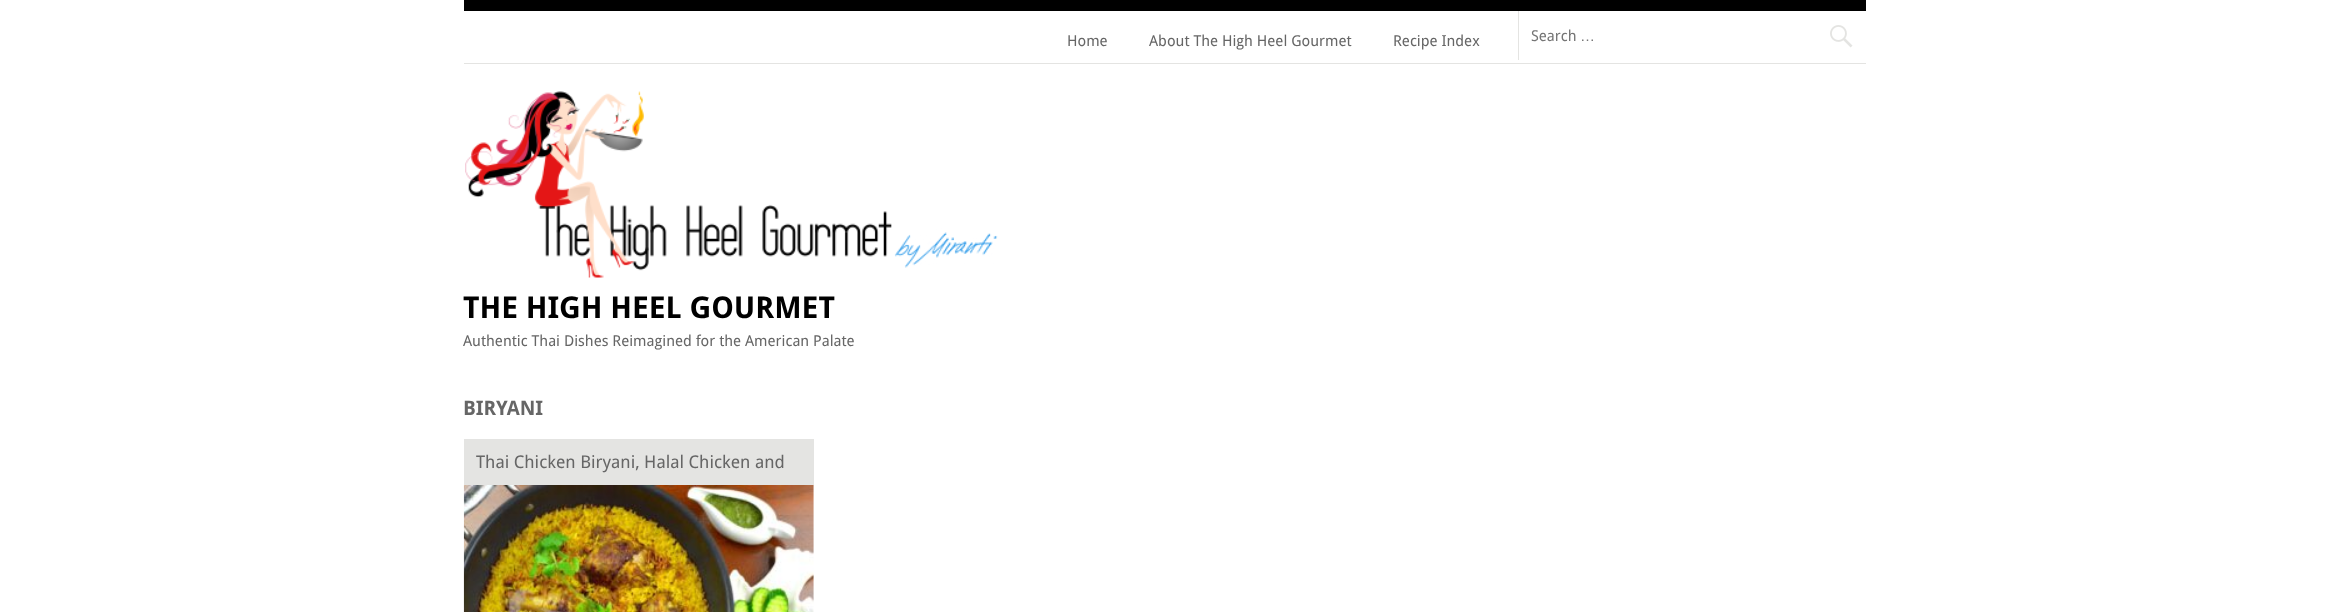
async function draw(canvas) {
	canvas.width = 2328;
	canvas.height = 612;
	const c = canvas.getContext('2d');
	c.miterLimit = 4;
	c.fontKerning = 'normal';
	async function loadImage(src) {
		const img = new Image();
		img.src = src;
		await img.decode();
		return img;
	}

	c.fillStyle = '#fff';
	c.fillRect(0, 0, 2328, 612);
	c.fillStyle = '#000';
	c.fillRect(464, 0, 1402, 11);
	c.fillStyle = '#e4e4e2';
	c.fillRect(464, 63, 1402, 1);
	c.font = '15px Droid Sans';
	c.fillStyle = '#666';
	for (const [text, x, y] of [
		['Home', 1067, 46],
		['About The High Heel Gourmet', 1149, 46],
		['Recipe Index', 1393, 46],
	]) {
		c.fillText(text, x, y);
	}
	c.fillStyle = '#e4e4e2';
	c.fillRect(1518, 11, 1, 49);
	c.fillStyle = '#757575';
	c.fillText('Search', 1531, 41);
	c.font = '15px Liberation Sans';
	c.fillText('…', 1580, 41);
	c.drawImage(await loadImage('img1.png'), 1830, 25, 23, 23);
	c.drawImage(await loadImage('img2.png'), 465, 91, 533, 187);
	c.font = 'bold 30px Droid Sans';
	c.fillStyle = '#000';
	c.fillText('THE HIGH HEEL GOURMET', 463, 318);
	c.font = '15px Droid Sans';
	c.fillStyle = '#666';
	c.fillText('Authentic Thai Dishes Reimagined for the American Palate', 463, 346);
	c.font = 'bold 20px Droid Sans';
	c.fillText('BIRYANI', 463, 415);
	c.fillStyle = '#e4e4e2';
	c.fillRect(464, 439, 350, 46);
	c.font = '17.5px Droid Sans';
	c.fillStyle = '#666';
	c.fillText('Thai Chicken Biryani, Halal Chicken and', 476, 468);
	c.drawImage(await loadImage('img3.png'), 463, 485, 351, 127);
}

draw(document.querySelector('canvas'));
